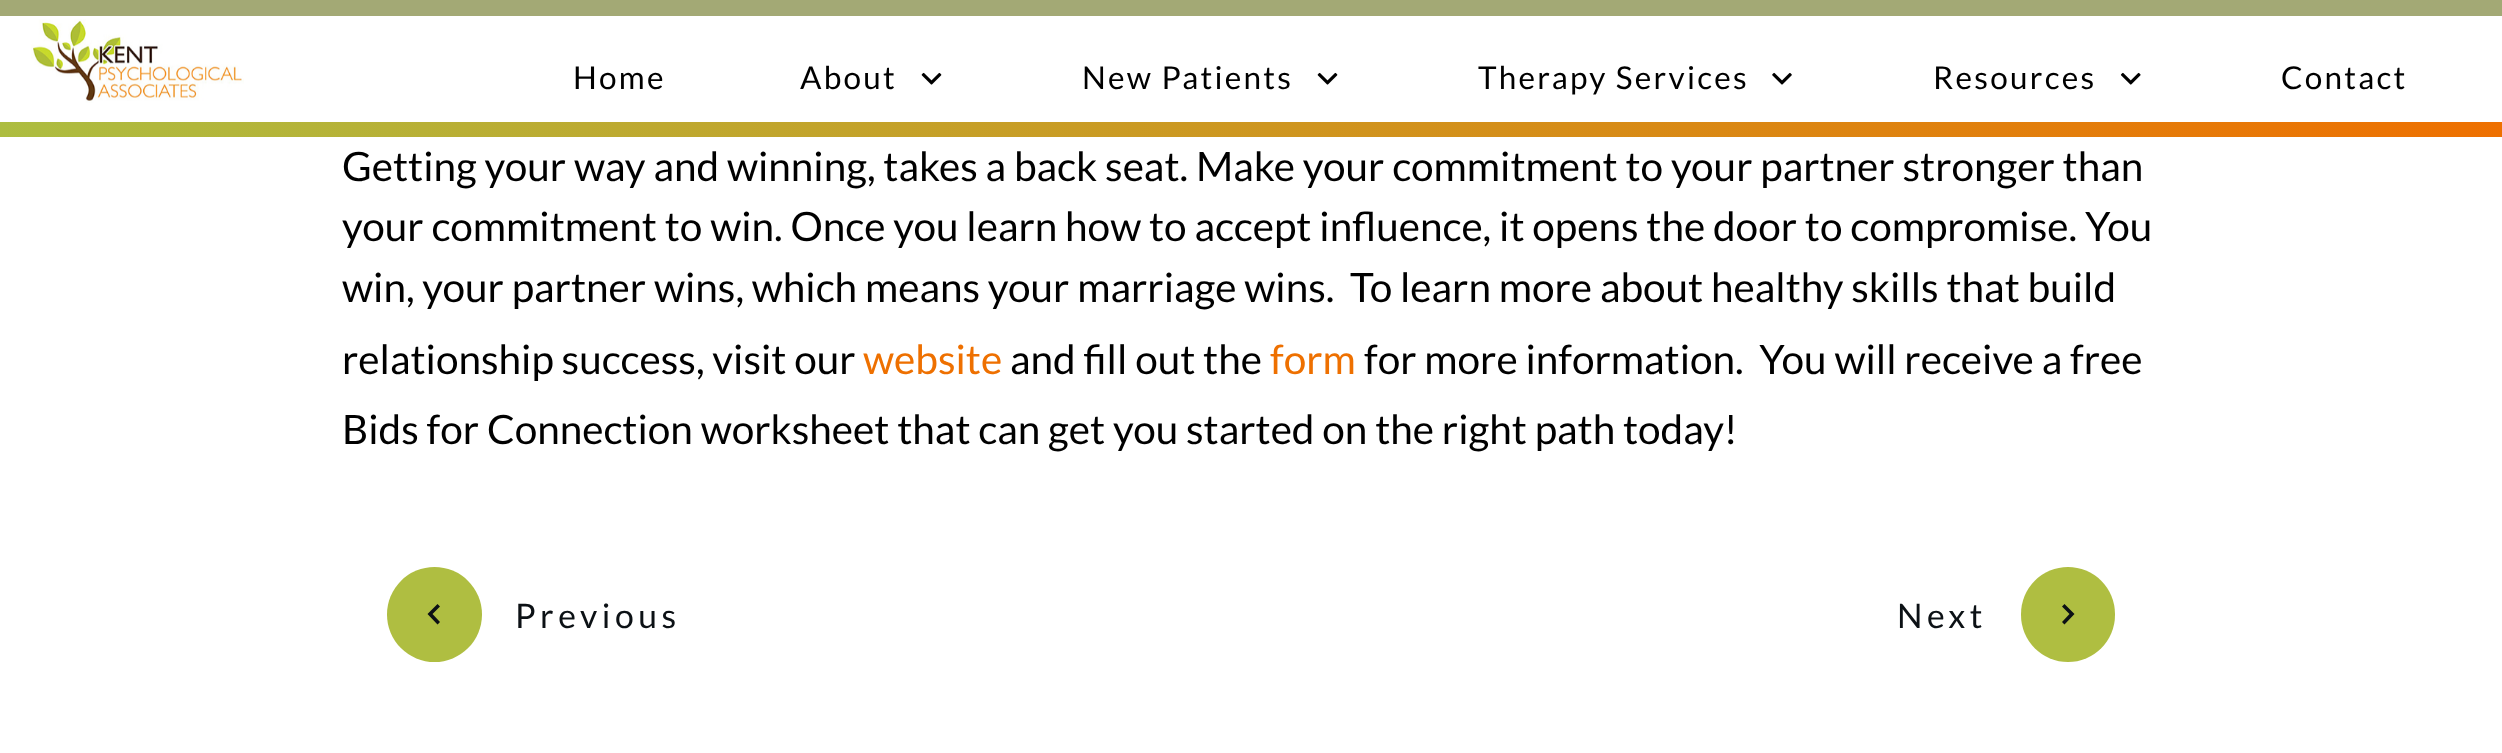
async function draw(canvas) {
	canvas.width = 2502;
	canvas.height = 753;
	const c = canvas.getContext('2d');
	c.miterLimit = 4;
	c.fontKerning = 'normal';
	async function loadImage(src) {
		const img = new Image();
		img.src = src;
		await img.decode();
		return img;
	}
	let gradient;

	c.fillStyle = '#fff';
	c.fillRect(0, 0, 2502, 753);
	c.fillStyle = '#a3a975';
	c.fillRect(0, 0, 2502, 16);
	c.drawImage(await loadImage('img1.png'), 31, 19, 213, 84);
	c.letterSpacing = '2.25px';
	c.font = '31.5px Lato';
	c.fillStyle = '#000';
	c.fillText('Home', 573, 89);
	c.fillText('About', 800, 89);
	c.drawImage(await loadImage('img2.png'), 921, 72, 21, 13);
	c.fillText('New Patients', 1082, 89);
	c.drawImage(await loadImage('img2.png'), 1317, 72, 21, 13);
	c.fillText('Therapy Services', 1478, 89);
	c.drawImage(await loadImage('img3.png'), 1772, 72, 20, 13);
	c.fillText('Resources', 1933, 89);
	c.drawImage(await loadImage('img4.png'), 2120, 72, 21, 13);
	c.fillText('Contact', 2281, 89);
	gradient = c.createLinearGradient(0, 129, 2502, 129);
	gradient.addColorStop(0, '#adbd40');
	gradient.addColorStop(1, '#ee7000');
	c.fillStyle = gradient;
	c.fillRect(0, 122, 2502, 15);
	c.letterSpacing = '0px';
	c.font = '40.5px Lato';
	c.fillStyle = '#000';
	for (const [text, x, y] of [
		['Getting your way and winning, takes a back seat. Make your commitment to your partner stronger than', 342, 181],
		['your commitment to win. Once you learn how to accept influence, it opens the door to compromise. You', 342, 241],
		['win, your partner wins, which means your marriage wins.  To learn more about healthy skills that build', 342, 302],
		['relationship success, visit our', 342, 374],
	]) {
		c.fillText(text, x, y);
	}
	c.fillStyle = '#ee7000';
	c.fillText('website', 863, 374);
	c.fillStyle = '#000';
	c.fillText('and fill out the', 1010, 374);
	c.fillStyle = '#ee7000';
	c.fillText('form', 1270, 374);
	c.fillStyle = '#000';
	c.fillText('for more information.  You will receive a free', 1364, 374);
	c.fillText('Bids for Connection worksheet that can get you started on the right path today!', 342, 444);
	c.fillStyle = '#afbe41';
	c.beginPath();
	c.arc(434.5, 614.5, 47.5, 0, 2 * Math.PI);
	c.fill();
	c.fillStyle = '#0c1115';
	c.beginPath();
	c.moveTo(440, 606.5);
	c.lineTo(437.5, 604);
	c.lineTo(427.5, 614);
	c.lineTo(437.5, 624.5);
	c.lineTo(440, 622);
	c.lineTo(432.5, 614);
	c.closePath();
	c.fill();
	c.letterSpacing = '4.5px';
	c.font = '33.75px Lato';
	c.fillText('Previous', 515, 628);
	c.fillText('Next', 1897, 628);
	c.fillStyle = '#afbe41';
	c.beginPath();
	c.roundRect(2021, 567, 94, 95, 47);
	c.fill();
	c.fillStyle = '#0c1115';
	c.beginPath();
	c.moveTo(2064.5, 604);
	c.lineTo(2062, 606.5);
	c.lineTo(2069.5, 614);
	c.lineTo(2062, 622);
	c.lineTo(2064.5, 624.5);
	c.lineTo(2074.5, 614);
	c.closePath();
	c.fill();
}

draw(document.querySelector('canvas'));
